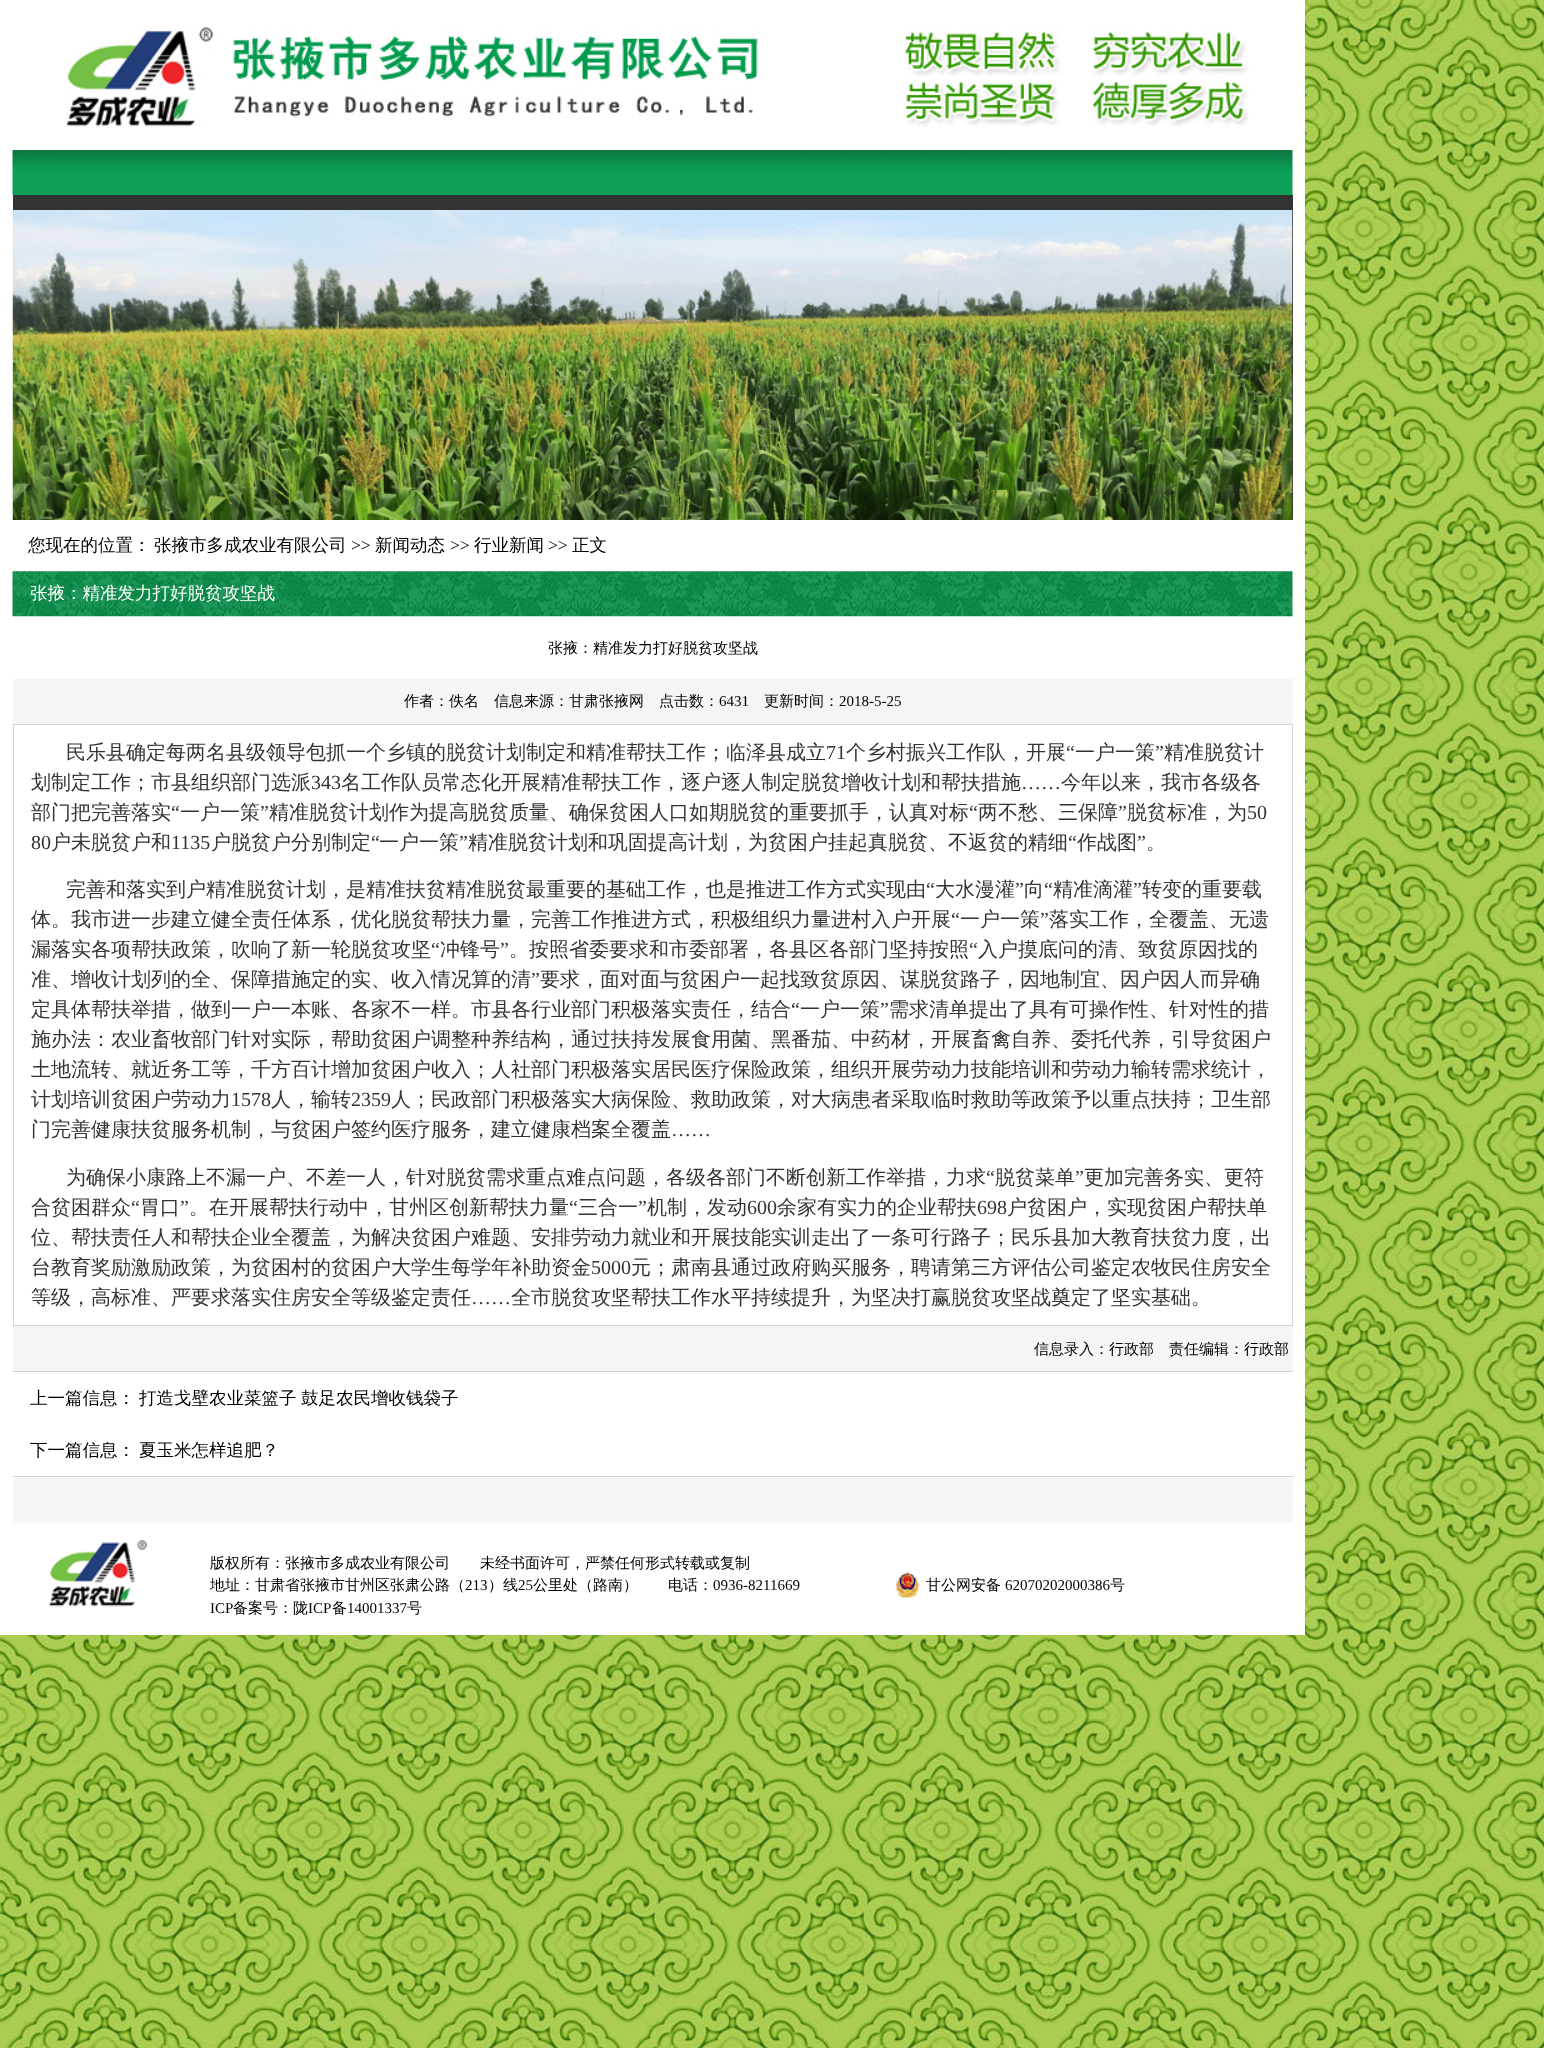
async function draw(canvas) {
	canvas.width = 1544;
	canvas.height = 2048;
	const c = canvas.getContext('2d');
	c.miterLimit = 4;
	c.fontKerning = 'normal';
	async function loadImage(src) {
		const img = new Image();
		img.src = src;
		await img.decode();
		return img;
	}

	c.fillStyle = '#fff';
	c.fillRect(0, 0, 1544, 2048);
	c.drawImage(await loadImage('img1.png'), 0, 0, 1544, 2048);
	c.fillRect(0, 0, 1305, 1635);
	c.drawImage(await loadImage('img2.png'), 66, 26, 1183, 101);
	c.drawImage(await loadImage('img3.png'), 12, 150, 1281, 45);
	c.fillStyle = '#333';
	c.fillRect(13, 195, 1280, 325);
	c.drawImage(await loadImage('img4.png'), 12, 210, 1281, 310);
	c.font = '500 17.5px WenQuanYi Zen Hei';
	c.fillStyle = '#000';
	c.fillText('您现在的位置：', 28, 551);
	c.fillText('张掖市多成农业有限公司', 154, 551);
	c.font = '17.5px Liberation Serif';
	c.fillText('>>', 351, 551);
	c.font = '500 17.5px WenQuanYi Zen Hei';
	c.fillText('新闻动态', 375, 551);
	c.font = '17.5px Liberation Serif';
	c.fillText('>>', 450, 551);
	c.font = '500 17.5px WenQuanYi Zen Hei';
	c.fillText('行业新闻', 474, 551);
	c.font = '17.5px Liberation Serif';
	c.fillText('>>', 548, 551);
	c.font = '500 17.5px WenQuanYi Zen Hei';
	c.fillText('正文', 572, 551);
	c.drawImage(await loadImage('img5.png'), 12, 571, 1281, 46);
	c.fillStyle = '#fff';
	c.fillText('张掖：精准发力打好脱贫攻坚战', 30, 599);
	c.font = '500 15px WenQuanYi Zen Hei';
	c.fillStyle = '#000';
	c.fillText('张掖：精准发力打好脱贫攻坚战', 548, 653);
	c.fillStyle = '#f5f5f5';
	c.fillRect(13, 679, 1280, 45);
	c.fillStyle = '#000';
	for (const [text, x, y] of [
		['作者：佚名', 404, 706],
		['信息来源：甘肃张掖网', 494, 706],
		['点击数：', 659, 706],
	]) {
		c.fillText(text, x, y);
	}
	c.font = '15px Liberation Serif';
	c.fillText('6431', 719, 706);
	c.font = '500 15px WenQuanYi Zen Hei';
	c.fillText('更新时间：', 764, 706);
	c.font = '15px Liberation Serif';
	c.fillText('2018-5-25', 839, 706);
	c.strokeStyle = '#d2d3d9';
	c.strokeRect(13.5, 724.5, 1279, 601);
	c.font = '500 20px WenQuanYi Zen Hei';
	c.fillStyle = '#333';
	c.fillText('民乐县确定每两名县级领导包抓一个乡镇的脱贫计划制定和精准帮扶工作；临泽县成立', 66, 759);
	c.font = '20px Liberation Serif';
	c.fillText('71', 826, 759);
	c.font = '500 20px WenQuanYi Zen Hei';
	c.fillText('个乡村振兴工作队，开展', 846, 759);
	c.font = '20px Liberation Serif';
	c.fillText('“', 1066, 759);
	c.font = '500 20px WenQuanYi Zen Hei';
	c.fillText('一户一策', 1075, 759);
	c.font = '20px Liberation Serif';
	c.fillText('”', 1155, 759);
	c.font = '500 20px WenQuanYi Zen Hei';
	c.fillText('精准脱贫计', 1164, 759);
	c.fillText('划制定工作；市县组织部门选派', 31, 789);
	c.font = '20px Liberation Serif';
	c.fillText('343', 311, 789);
	c.font = '500 20px WenQuanYi Zen Hei';
	c.fillText('名工作队员常态化开展精准帮扶工作，逐户逐人制定脱贫增收计划和帮扶措施', 341, 789);
	c.font = '20px Liberation Serif';
	c.fillText('……', 1021, 789);
	c.font = '500 20px WenQuanYi Zen Hei';
	c.fillText('今年以来，我市各级各', 1061, 789);
	c.fillText('部门把完善落实', 31, 819);
	c.font = '20px Liberation Serif';
	c.fillText('“', 171, 819);
	c.font = '500 20px WenQuanYi Zen Hei';
	c.fillText('一户一策', 180, 819);
	c.font = '20px Liberation Serif';
	c.fillText('”', 260, 819);
	c.font = '500 20px WenQuanYi Zen Hei';
	c.fillText('精准脱贫计划作为提高脱贫质量、确保贫困人口如期脱贫的重要抓手，认真对标', 269, 819);
	c.font = '20px Liberation Serif';
	c.fillText('“', 969, 819);
	c.font = '500 20px WenQuanYi Zen Hei';
	c.fillText('两不愁、三保障', 978, 819);
	c.font = '20px Liberation Serif';
	c.fillText('”', 1118, 819);
	c.font = '500 20px WenQuanYi Zen Hei';
	c.fillText('脱贫标准，为', 1127, 819);
	c.font = '20px Liberation Serif';
	c.fillText('50', 1247, 819);
	c.fillText('80', 31, 849);
	c.font = '500 20px WenQuanYi Zen Hei';
	c.fillText('户未脱贫户和', 51, 849);
	c.font = '20px Liberation Serif';
	c.fillText('1135', 171, 849);
	c.font = '500 20px WenQuanYi Zen Hei';
	c.fillText('户脱贫户分别制定', 211, 849);
	c.font = '20px Liberation Serif';
	c.fillText('“', 371, 849);
	c.font = '500 20px WenQuanYi Zen Hei';
	c.fillText('一户一策', 379, 849);
	c.font = '20px Liberation Serif';
	c.fillText('”', 459, 849);
	c.font = '500 20px WenQuanYi Zen Hei';
	c.fillText('精准脱贫计划和巩固提高计划，为贫困户挂起真脱贫、不返贫的精细', 468, 849);
	c.font = '20px Liberation Serif';
	c.fillText('“', 1068, 849);
	c.font = '500 20px WenQuanYi Zen Hei';
	c.fillText('作战图', 1077, 849);
	c.font = '20px Liberation Serif';
	c.fillText('”', 1137, 849);
	c.font = '500 20px WenQuanYi Zen Hei';
	c.fillText('。', 1146, 849);
	c.fillText('完善和落实到户精准脱贫计划，是精准扶贫精准脱贫最重要的基础工作，也是推进工作方式实现由', 66, 896);
	c.font = '20px Liberation Serif';
	c.fillText('“', 926, 896);
	c.font = '500 20px WenQuanYi Zen Hei';
	c.fillText('大水漫灌', 935, 896);
	c.font = '20px Liberation Serif';
	c.fillText('”', 1015, 896);
	c.font = '500 20px WenQuanYi Zen Hei';
	c.fillText('向', 1024, 896);
	c.font = '20px Liberation Serif';
	c.fillText('“', 1044, 896);
	c.font = '500 20px WenQuanYi Zen Hei';
	c.fillText('精准滴灌', 1053, 896);
	c.font = '20px Liberation Serif';
	c.fillText('”', 1133, 896);
	c.font = '500 20px WenQuanYi Zen Hei';
	c.fillText('转变的重要载', 1142, 896);
	c.fillText('体。我市进一步建立健全责任体系，优化脱贫帮扶力量，完善工作推进方式，积极组织力量进村入户开展', 31, 926);
	c.font = '20px Liberation Serif';
	c.fillText('“', 951, 926);
	c.font = '500 20px WenQuanYi Zen Hei';
	c.fillText('一户一策', 960, 926);
	c.font = '20px Liberation Serif';
	c.fillText('”', 1040, 926);
	c.font = '500 20px WenQuanYi Zen Hei';
	c.fillText('落实工作，全覆盖、无遗', 1049, 926);
	c.fillText('漏落实各项帮扶政策，吹响了新一轮脱贫攻坚', 31, 956);
	c.font = '20px Liberation Serif';
	c.fillText('“', 431, 956);
	c.font = '500 20px WenQuanYi Zen Hei';
	c.fillText('冲锋号', 440, 956);
	c.font = '20px Liberation Serif';
	c.fillText('”', 500, 956);
	c.font = '500 20px WenQuanYi Zen Hei';
	c.fillText('。按照省委要求和市委部署，各县区各部门坚持按照', 509, 956);
	c.font = '20px Liberation Serif';
	c.fillText('“', 969, 956);
	c.font = '500 20px WenQuanYi Zen Hei';
	c.fillText('入户摸底问的清、致贫原因找的', 978, 956);
	c.fillText('准、增收计划列的全、保障措施定的实、收入情况算的清', 31, 986);
	c.font = '20px Liberation Serif';
	c.fillText('”', 531, 986);
	c.font = '500 20px WenQuanYi Zen Hei';
	c.fillText('要求，面对面与贫困户一起找致贫原因、谋脱贫路子，因地制宜、因户因人而异确', 540, 986);
	c.fillText('定具体帮扶举措，做到一户一本账、各家不一样。市县各行业部门积极落实责任，结合', 31, 1016);
	c.font = '20px Liberation Serif';
	c.fillText('“', 791, 1016);
	c.font = '500 20px WenQuanYi Zen Hei';
	c.fillText('一户一策', 800, 1016);
	c.font = '20px Liberation Serif';
	c.fillText('”', 880, 1016);
	c.font = '500 20px WenQuanYi Zen Hei';
	for (const [text, x, y] of [
		['需求清单提出了具有可操作性、针对性的措', 889, 1016],
		['施办法：农业畜牧部门针对实际，帮助贫困户调整种养结构，通过扶持发展食用菌、黑番茄、中药材，开展畜禽自养、委托代养，引导贫困户', 31, 1046],
		['土地流转、就近务工等，千方百计增加贫困户收入；人社部门积极落实居民医疗保险政策，组织开展劳动力技能培训和劳动力输转需求统计，', 31, 1076],
		['计划培训贫困户劳动力', 31, 1106],
	]) {
		c.fillText(text, x, y);
	}
	c.font = '20px Liberation Serif';
	c.fillText('1578', 231, 1106);
	c.font = '500 20px WenQuanYi Zen Hei';
	c.fillText('人，输转', 271, 1106);
	c.font = '20px Liberation Serif';
	c.fillText('2359', 351, 1106);
	c.font = '500 20px WenQuanYi Zen Hei';
	c.fillText('人；民政部门积极落实大病保险、救助政策，对大病患者采取临时救助等政策予以重点扶持；卫生部', 391, 1106);
	c.fillText('门完善健康扶贫服务机制，与贫困户签约医疗服务，建立健康档案全覆盖', 31, 1136);
	c.font = '20px Liberation Serif';
	c.fillText('……', 671, 1136);
	c.font = '500 20px WenQuanYi Zen Hei';
	c.fillText('为确保小康路上不漏一户、不差一人，针对脱贫需求重点难点问题，各级各部门不断创新工作举措，力求', 66, 1184);
	c.font = '20px Liberation Serif';
	c.fillText('“', 986, 1184);
	c.font = '500 20px WenQuanYi Zen Hei';
	c.fillText('脱贫菜单', 995, 1184);
	c.font = '20px Liberation Serif';
	c.fillText('”', 1075, 1184);
	c.font = '500 20px WenQuanYi Zen Hei';
	c.fillText('更加完善务实、更符', 1084, 1184);
	c.fillText('合贫困群众', 31, 1214);
	c.font = '20px Liberation Serif';
	c.fillText('“', 131, 1214);
	c.font = '500 20px WenQuanYi Zen Hei';
	c.fillText('胃口', 140, 1214);
	c.font = '20px Liberation Serif';
	c.fillText('”', 180, 1214);
	c.font = '500 20px WenQuanYi Zen Hei';
	c.fillText('。在开展帮扶行动中，甘州区创新帮扶力量', 189, 1214);
	c.font = '20px Liberation Serif';
	c.fillText('“', 569, 1214);
	c.font = '500 20px WenQuanYi Zen Hei';
	c.fillText('三合一', 578, 1214);
	c.font = '20px Liberation Serif';
	c.fillText('”', 638, 1214);
	c.font = '500 20px WenQuanYi Zen Hei';
	c.fillText('机制，发动', 647, 1214);
	c.font = '20px Liberation Serif';
	c.fillText('600', 747, 1214);
	c.font = '500 20px WenQuanYi Zen Hei';
	c.fillText('余家有实力的企业帮扶', 777, 1214);
	c.font = '20px Liberation Serif';
	c.fillText('698', 977, 1214);
	c.font = '500 20px WenQuanYi Zen Hei';
	for (const [text, x, y] of [
		['户贫困户，实现贫困户帮扶单', 1007, 1214],
		['位、帮扶责任人和帮扶企业全覆盖，为解决贫困户难题、安排劳动力就业和开展技能实训走出了一条可行路子；民乐县加大教育扶贫力度，出', 31, 1244],
		['台教育奖励激励政策，为贫困村的贫困户大学生每学年补助资金', 31, 1274],
	]) {
		c.fillText(text, x, y);
	}
	c.font = '20px Liberation Serif';
	c.fillText('5000', 591, 1274);
	c.font = '500 20px WenQuanYi Zen Hei';
	c.fillText('元；肃南县通过政府购买服务，聘请第三方评估公司鉴定农牧民住房安全', 631, 1274);
	c.fillText('等级，高标准、严要求落实住房安全等级鉴定责任', 31, 1304);
	c.font = '20px Liberation Serif';
	c.fillText('……', 471, 1304);
	c.font = '500 20px WenQuanYi Zen Hei';
	c.fillText('全市脱贫攻坚帮扶工作水平持续提升，为坚决打赢脱贫攻坚战奠定了坚实基础。', 511, 1304);
	c.fillStyle = '#f5f5f5';
	c.fillRect(13, 1326, 1280, 45);
	c.font = '500 15px WenQuanYi Zen Hei';
	c.fillStyle = '#000';
	c.fillText('信息录入：行政部', 1034, 1354);
	c.fillText('责任编辑：行政部', 1169, 1354);
	c.fillStyle = '#d2d3d9';
	c.fillRect(13, 1371, 1280, 1);
	c.fillRect(13, 1476, 1280, 1);
	c.font = '500 17.5px WenQuanYi Zen Hei';
	c.fillStyle = '#000';
	for (const [text, x, y] of [
		['上一篇信息：', 30, 1404],
		['打造戈壁农业菜篮子', 139, 1404],
		['鼓足农民增收钱袋子', 301, 1404],
		['下一篇信息：', 30, 1456],
		['夏玉米怎样追肥？', 139, 1456],
	]) {
		c.fillText(text, x, y);
	}
	c.fillStyle = '#f5f5f5';
	c.fillRect(13, 1478, 1280, 45);
	c.drawImage(await loadImage('img6.png'), 13, 1522, 1279, 85);
	c.font = '500 15px WenQuanYi Zen Hei';
	c.fillStyle = '#000';
	c.fillText('版权所有：张掖市多成农业有限公司　　未经书面许可，严禁任何形式转载或复制', 210, 1568);
	c.fillText('地址：甘肃省张掖市甘州区张肃公路（', 210, 1590);
	c.font = '15px Liberation Serif';
	c.fillText('213', 465, 1590);
	c.font = '500 15px WenQuanYi Zen Hei';
	c.fillText('）线', 488, 1590);
	c.font = '15px Liberation Serif';
	c.fillText('25', 518, 1590);
	c.font = '500 15px WenQuanYi Zen Hei';
	c.fillText('公里处（路南）　　电话：', 533, 1590);
	c.font = '15px Liberation Serif';
	c.fillText('0936-8211669', 713, 1590);
	c.fillText('ICP', 210, 1613);
	c.font = '500 15px WenQuanYi Zen Hei';
	c.fillText('备案号：陇', 233, 1613);
	c.font = '15px Liberation Serif';
	c.fillText('ICP', 308, 1613);
	c.font = '500 15px WenQuanYi Zen Hei';
	c.fillText('备', 332, 1613);
	c.font = '15px Liberation Serif';
	c.fillText('14001337', 347, 1613);
	c.font = '500 15px WenQuanYi Zen Hei';
	c.fillText('号', 407, 1613);
	c.drawImage(await loadImage('img7.png'), 896, 1572, 23, 26);
	c.fillText('甘公网安备', 926, 1590);
	c.font = '15px Liberation Serif';
	c.fillText('62070202000386', 1005, 1590);
	c.font = '500 15px WenQuanYi Zen Hei';
	c.fillText('号', 1110, 1590);
}

draw(document.querySelector('canvas'));
